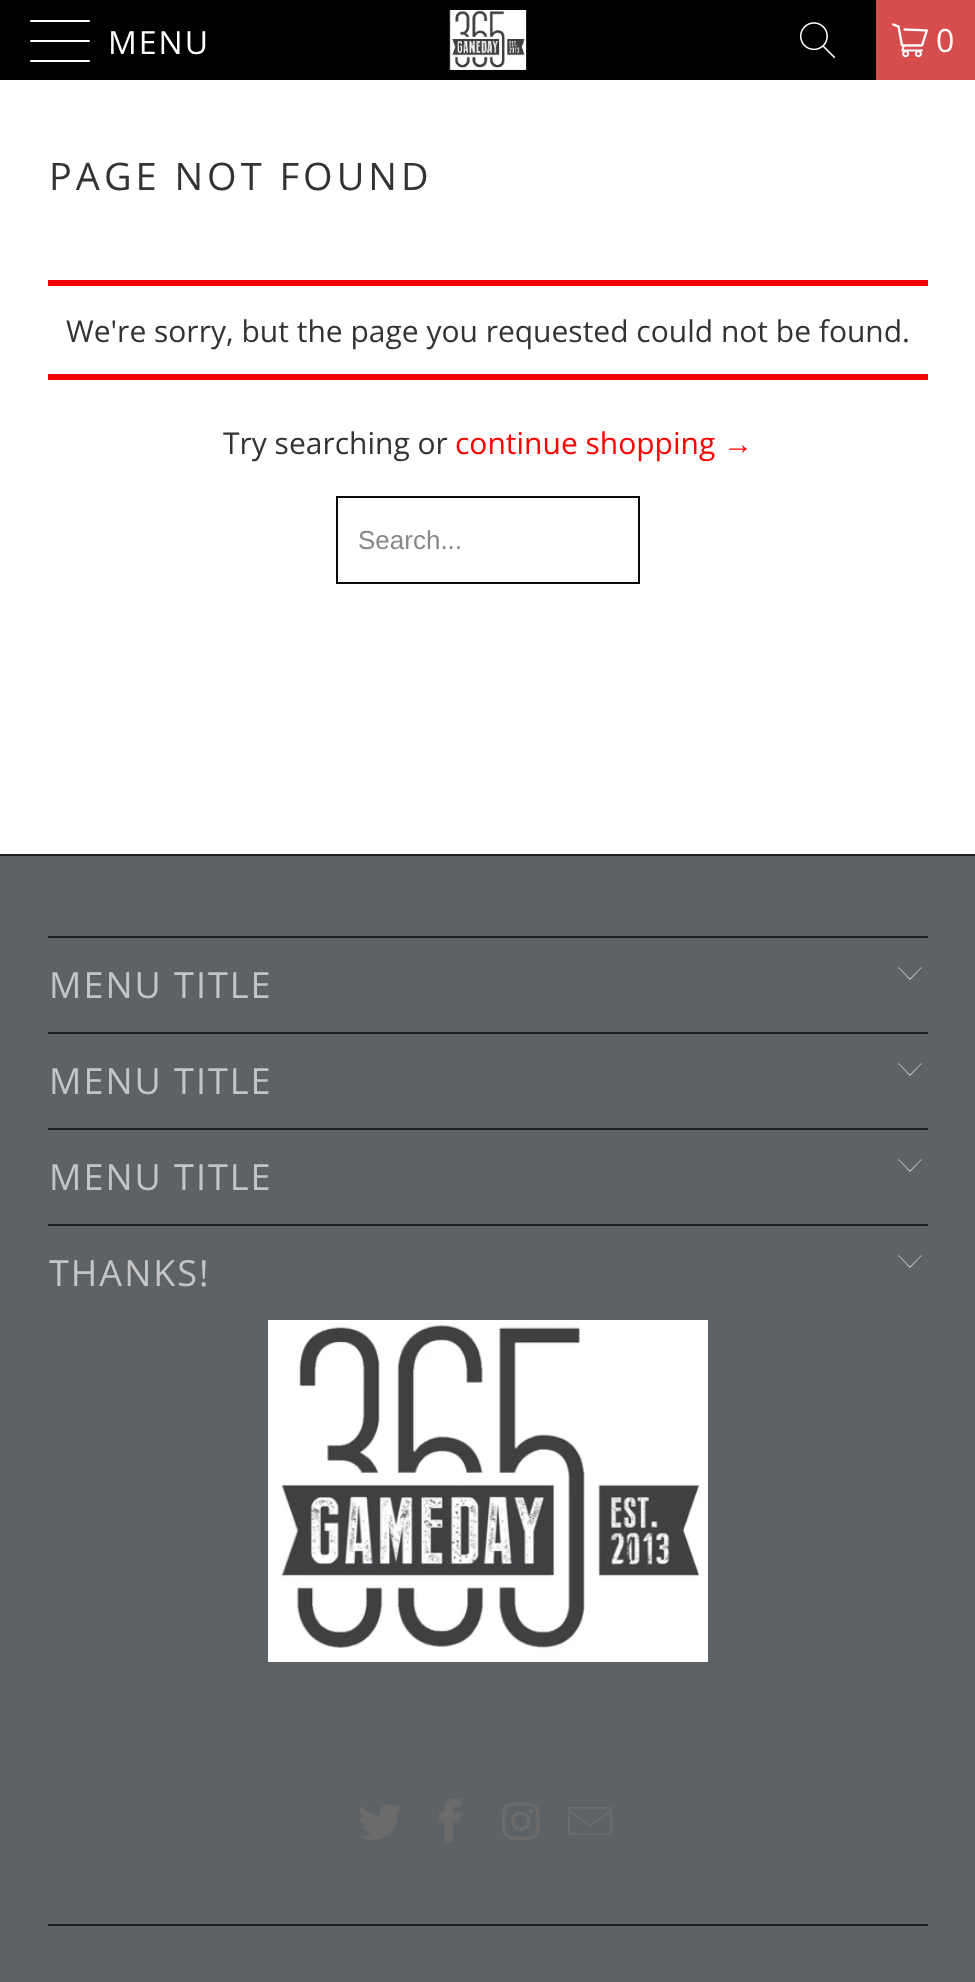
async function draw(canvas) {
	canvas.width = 975;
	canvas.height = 1982;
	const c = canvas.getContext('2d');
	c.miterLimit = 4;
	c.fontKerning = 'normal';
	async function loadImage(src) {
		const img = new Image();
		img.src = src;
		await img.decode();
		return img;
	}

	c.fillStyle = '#fff';
	c.fillRect(0, 0, 975, 1982);
	c.fillStyle = '#000';
	c.fillRect(0, 0, 876, 80);
	c.fillStyle = '#fff';
	c.beginPath();
	c.roundRect(30, 20, 60, 2, 1);
	c.fill();
	c.beginPath();
	c.roundRect(30, 40, 60, 2, 1);
	c.fill();
	c.beginPath();
	c.roundRect(30, 60, 60, 2, 1);
	c.fill();
	c.letterSpacing = '2px';
	c.font = '32px Open Sans';
	c.fillText('MENU', 108, 54);
	c.drawImage(await loadImage('img1.png'), 449, 10, 78, 60);
	c.drawImage(await loadImage('img2.png'), 799, 22, 37, 37);
	c.fillStyle = '#d54d4d';
	c.fillRect(876, 0, 99, 80);
	c.drawImage(await loadImage('img3.png'), 892, 23, 36, 35);
	c.fillStyle = '#fff';
	c.fillText('0', 936, 52);
	c.letterSpacing = '4px';
	c.font = '38px Open Sans';
	c.fillStyle = '#333';
	c.fillText('PAGE NOT FOUND', 49, 190);
	c.fillStyle = '#f20303';
	c.fillRect(48, 280, 880, 6);
	c.fillRect(48, 374, 880, 6);
	c.letterSpacing = '0px';
	c.font = '30px Open Sans';
	c.fillStyle = '#333';
	c.fillText('We\'re sorry, but the page you requested could not be found.', 66, 342);
	c.fillText('Try searching or', 223, 454);
	c.fillStyle = '#f00';
	c.fillText('continue shopping', 455, 454);
	c.font = '30px Liberation Sans';
	c.fillText('→', 723, 454);
	c.strokeStyle = '#090909';
	c.lineWidth = 2;
	c.strokeRect(337, 497, 302, 86);
	c.font = '26px Liberation Sans';
	c.fillStyle = '#888';
	c.fillText('Search...', 358, 549);
	for (const [x, y, w, h, color] of [
		[0, 856, 975, 1126, '#5d6267'],
		[0, 854, 975, 2, '#1b1f23'],
		[48, 936, 880, 2, '#1b1f23'],
	]) {
		c.fillStyle = color;
		c.fillRect(x, y, w, h);
	}
	c.letterSpacing = '2px';
	c.font = '36px Open Sans';
	c.fillStyle = '#c5c5c5';
	c.fillText('MENU TITLE', 49, 998);
	c.beginPath();
	c.moveTo(910, 980);
	c.lineTo(898, 967.5);
	c.lineTo(898.5, 967);
	c.lineTo(910, 978.5);
	c.lineTo(921.5, 967);
	c.lineTo(922, 967.5);
	c.closePath();
	c.fill();
	c.fillStyle = '#1b1f23';
	c.fillRect(48, 1032, 880, 2);
	c.fillStyle = '#c5c5c5';
	c.fillText('MENU TITLE', 49, 1094);
	c.beginPath();
	c.moveTo(910, 1076);
	c.lineTo(898, 1063.5);
	c.lineTo(898.5, 1063);
	c.lineTo(910, 1074.5);
	c.lineTo(921.5, 1063);
	c.lineTo(922, 1063.5);
	c.closePath();
	c.fill();
	c.fillStyle = '#1b1f23';
	c.fillRect(48, 1128, 880, 2);
	c.fillStyle = '#c5c5c5';
	c.fillText('MENU TITLE', 49, 1190);
	c.beginPath();
	c.moveTo(910, 1172);
	c.lineTo(898, 1159.5);
	c.lineTo(898.5, 1159);
	c.lineTo(910, 1170.5);
	c.lineTo(921.5, 1159);
	c.lineTo(922, 1159.5);
	c.closePath();
	c.fill();
	c.fillStyle = '#1b1f23';
	c.fillRect(48, 1224, 880, 2);
	c.fillStyle = '#c5c5c5';
	c.fillText('THANKS!', 49, 1286);
	c.beginPath();
	c.moveTo(910, 1268);
	c.lineTo(898, 1255.5);
	c.lineTo(898.5, 1255);
	c.lineTo(910, 1266.5);
	c.lineTo(921.5, 1255);
	c.lineTo(922, 1255.5);
	c.closePath();
	c.fill();
	c.drawImage(await loadImage('img4.png'), 268, 1320, 440, 342);
	c.drawImage(await loadImage('img5.png'), 359, 1804, 42, 36);
	c.drawImage(await loadImage('img6.png'), 439, 1799, 22, 44);
	c.drawImage(await loadImage('img7.png'), 502, 1802, 38, 38);
	c.drawImage(await loadImage('img8.png'), 568, 1807, 44, 28);
	c.fillStyle = '#1b1f23';
	c.fillRect(48, 1924, 880, 2);
}

draw(document.querySelector('canvas'));
